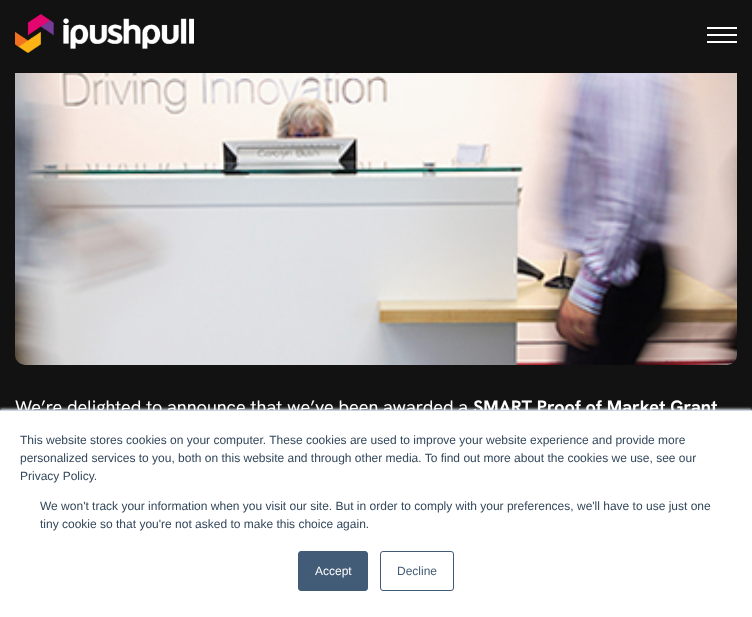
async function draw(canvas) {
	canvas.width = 752;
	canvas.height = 617;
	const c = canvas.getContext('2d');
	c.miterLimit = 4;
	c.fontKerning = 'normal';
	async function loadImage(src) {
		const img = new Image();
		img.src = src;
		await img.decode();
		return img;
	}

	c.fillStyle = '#121212';
	c.fillRect(0, 0, 752, 617);
	c.drawImage(await loadImage('img1.png'), 15, 14, 179, 39);
	for (const [x, y, w, h, color] of [
		[707, 27, 30, 2, '#fff'],
		[707, 34, 30, 2, '#fff'],
		[707, 41, 30, 2, '#fff'],
	]) {
		c.fillStyle = color;
		c.fillRect(x, y, w, h);
	}
	c.drawImage(await loadImage('img2.png'), 15, 73, 722, 292);
	c.font = '18px Hanken Grotesk';
	c.fillText('We’re delighted to announce that we’ve been awarded a', 15, 413);
	c.font = 'bold 18px Hanken Grotesk';
	c.fillText('SMART Proof of Market Grant', 473, 413);
	c.fillStyle = '#eaf0f6';
	c.filter = 'blur(1.5px)';
	c.beginPath();
	c.rect(0, 409, 752, 207);
	c.fill();
	c.filter = 'none';
	c.fillStyle = '#fff';
	c.fillRect(0, 411, 752, 206);
	c.fillStyle = '#cbd6e2';
	c.fillRect(0, 410, 752, 1);
	c.font = '12px Liberation Sans';
	c.fillStyle = '#33475b';
	for (const [text, x, y] of [
		['This website stores cookies on your computer. These cookies are used to improve your website experience and provide more', 20, 444],
		['personalized services to you, both on this website and through other media. To find out more about the cookies we use, see our', 20, 462],
		['Privacy Policy.', 20, 480],
		['We won\'t track your information when you visit our site. But in order to comply with your preferences, we\'ll have to use just one', 40, 510],
		['tiny cookie so that you\'re not asked to make this choice again.', 40, 528],
	]) {
		c.fillText(text, x, y);
	}
	c.fillStyle = '#425b76';
	c.beginPath();
	c.roundRect(298.5, 551.5, 69, 39, 2.5);
	c.fill();
	c.strokeStyle = '#425b76';
	c.stroke();
	c.fillStyle = '#fff';
	c.fillText('Accept', 315, 575);
	c.beginPath();
	c.roundRect(380.5, 551.5, 73, 39, 2.5);
	c.stroke();
	c.fillStyle = '#425b76';
	c.fillText('Decline', 397, 575);
}

draw(document.querySelector('canvas'));
